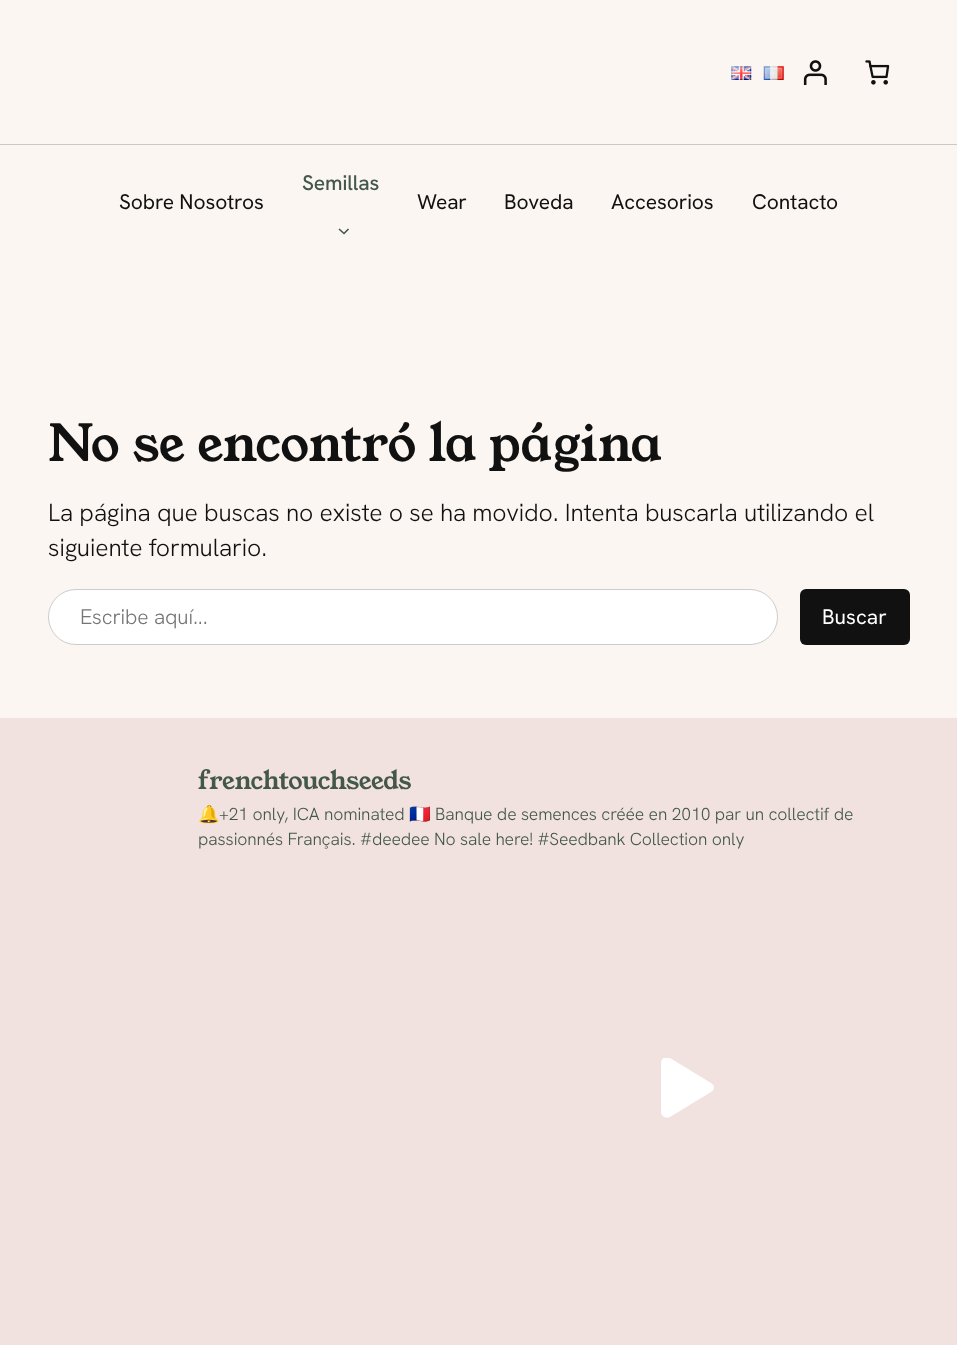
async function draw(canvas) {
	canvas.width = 957;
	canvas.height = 1345;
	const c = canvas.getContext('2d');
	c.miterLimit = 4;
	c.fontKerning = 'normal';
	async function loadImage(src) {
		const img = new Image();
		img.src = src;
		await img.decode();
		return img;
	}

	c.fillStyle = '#fbf6f1';
	c.fillRect(0, 0, 957, 1345);
	c.drawImage(await loadImage('img1.png'), 731, 66, 21, 14);
	c.drawImage(await loadImage('img2.png'), 763, 66, 21, 14);
	c.drawImage(await loadImage('img3.png'), 803, 60, 24, 25);
	c.drawImage(await loadImage('img4.png'), 865, 60, 25, 25);
	c.fillStyle = '#ccc8c4';
	c.fillRect(0, 144, 957, 1);
	c.letterSpacing = '-0.12px';
	c.font = '500 21px Hanken Grotesk';
	c.fillStyle = '#43574b';
	c.fillText('Semillas', 302, 190);
	c.beginPath();
	c.moveTo(339, 229);
	c.lineTo(344, 233.5);
	c.lineTo(348.5, 229);
	c.strokeStyle = '#43574b';
	c.lineWidth = 1.6;
	c.stroke();
	c.font = '21px Hanken Grotesk';
	c.fillStyle = '#111';
	for (const [text, x, y] of [
		['Sobre Nosotros', 119, 209],
		['Wear', 417, 209],
		['Boveda', 504, 209],
		['Accesorios', 611, 209],
		['Contacto', 752, 209],
	]) {
		c.fillText(text, x, y);
	}
	c.font = '50.5px Young Serif';
	c.fillText('No se encontró la página', 48, 461);
	c.font = '300 24.7px Hanken Grotesk';
	c.fillText('La página que buscas no existe o se ha movido. Intenta buscarla utilizando el', 48, 521);
	c.fillText('siguiente formulario.', 48, 556);
	c.fillStyle = '#fff';
	c.beginPath();
	c.roundRect(48, 589, 730, 56, 28);
	c.fill();
	c.beginPath();
	c.roundRect(48.5, 589.5, 729, 55, 27.5);
	c.strokeStyle = '#00000033';
	c.lineWidth = 1;
	c.stroke();
	c.font = '300 21px Hanken Grotesk';
	c.fillStyle = '#757575';
	c.fillText('Escribe aquí...', 80, 624);
	c.fillStyle = '#111';
	c.beginPath();
	c.roundRect(800, 589, 110, 56, 6);
	c.fill();
	c.letterSpacing = '0px';
	c.font = '21px Hanken Grotesk';
	c.fillStyle = '#fff';
	c.fillText('Buscar', 822, 624);
	c.fillStyle = '#f1e2df';
	c.fillRect(0, 718, 957, 627);
	c.letterSpacing = '-0.12px';
	c.font = '25px Young Serif';
	c.fillStyle = '#43574b';
	c.fillText('frenchtouchseeds', 198, 789);
	c.font = '17.5px Noto Color Emoji';
	c.fillText('🔔', 198, 820);
	c.font = '300 17.5px Hanken Grotesk';
	c.fillText('+21 only, ICA nominated', 219, 820);
	c.font = '17.5px Noto Color Emoji';
	c.fillText('🇫🇷', 409, 820);
	c.font = '300 17.5px Hanken Grotesk';
	c.fillText('Banque de semences créée en 2010 par un collectif de', 435, 820);
	c.fillText('passionnés Français. #deedee No sale here! #Seedbank Collection only', 198, 845);
	c.save();
	c.beginPath();
	c.rect(661, 1058, 53, 60);
	c.clip();
	c.fillStyle = '#fff';
	c.beginPath();
	c.moveTo(711, 1083);
	c.lineTo(670, 1058);
	c.bezierCurveTo(666, 1056, 661, 1058, 661, 1063);
	c.lineTo(661, 1112);
	c.bezierCurveTo(661, 1116, 666, 1119, 670, 1117);
	c.lineTo(711, 1092);
	c.bezierCurveTo(715, 1090, 715, 1085, 711, 1083);
	c.closePath();
	c.fill();
	c.restore();
}

draw(document.querySelector('canvas'));
